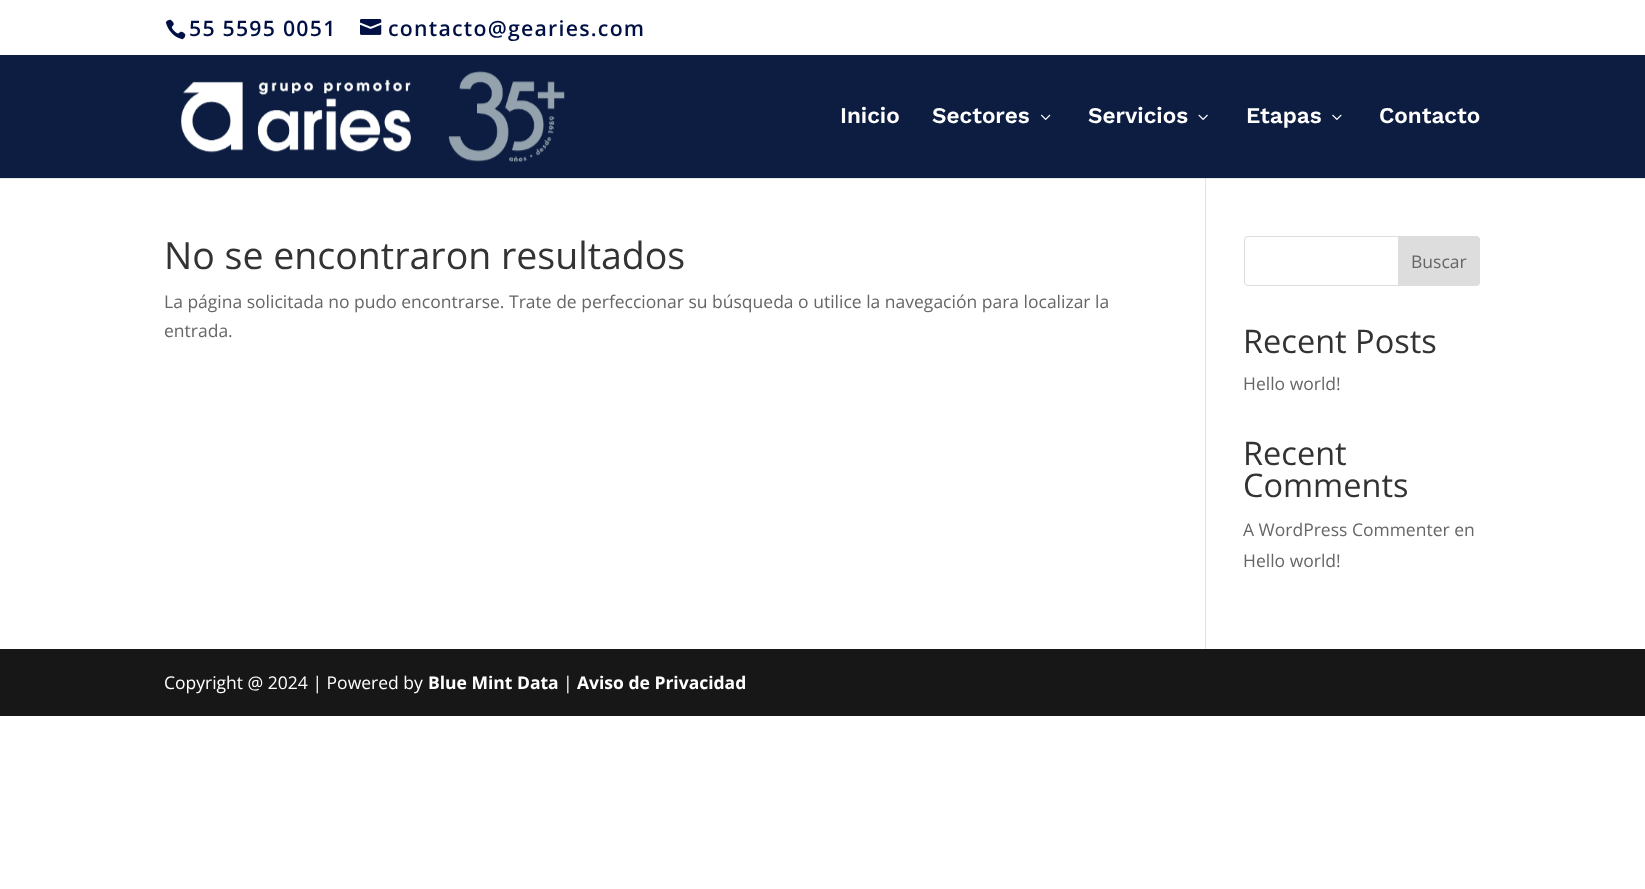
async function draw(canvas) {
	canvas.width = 1645;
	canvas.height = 889;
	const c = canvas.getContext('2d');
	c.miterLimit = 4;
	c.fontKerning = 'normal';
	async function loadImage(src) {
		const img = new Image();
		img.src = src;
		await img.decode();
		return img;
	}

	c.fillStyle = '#fff';
	c.fillRect(0, 0, 1645, 889);
	c.fillStyle = '#e6e6e6';
	c.fillRect(0, 178, 1645, 1);
	c.drawImage(await loadImage('img1.png'), 165, 19, 21, 21);
	c.letterSpacing = '1.25px';
	c.font = '600 21.25px Open Sans';
	c.fillStyle = '#001044';
	c.fillText('55 5595 0051', 189, 36);
	c.drawImage(await loadImage('img2.png'), 360, 19, 22, 16);
	c.fillText('contacto@gearies.com', 388, 36);
	c.fillStyle = '#0d1d41';
	c.fillRect(0, 55, 1645, 123);
	c.drawImage(await loadImage('img3.png'), 181, 71, 384, 92);
	c.letterSpacing = '0px';
	c.font = '600 22.5px Work Sans';
	c.fillStyle = '#fff';
	c.fillText('Inicio', 840, 123);
	c.fillText('Sectores', 932, 123);
	c.drawImage(await loadImage('img4.png'), 1041, 114, 10, 6);
	c.fillText('Servicios', 1088, 123);
	c.drawImage(await loadImage('img5.png'), 1198, 114, 10, 6);
	c.fillText('Etapas', 1246, 123);
	c.drawImage(await loadImage('img6.png'), 1332, 114, 10, 6);
	c.fillText('Contacto', 1379, 123);
	c.fillStyle = '#e2e2e2';
	c.fillRect(1205, 179, 1, 470);
	c.fillStyle = '#cbcbcb';
	c.fillRect(1205, 178, 1, 1);
	c.font = '37.5px Open Sans';
	c.fillStyle = '#333';
	c.fillText('No se encontraron resultados', 164, 269);
	c.font = '17.5px Open Sans';
	c.fillStyle = '#666';
	c.fillText('La página solicitada no pudo encontrarse. Trate de perfeccionar su búsqueda o utilice la navegación para localizar la', 164, 308);
	c.fillText('entrada.', 164, 337);
	c.beginPath();
	c.roundRect(1244.5, 236.5, 235, 49, 3.5);
	c.strokeStyle = '#ddd';
	c.stroke();
	c.fillStyle = '#ddd';
	c.beginPath();
	c.roundRect(1398.5, 236.5, 81, 49, [0, 3.5, 3.5, 0]);
	c.fill();
	c.stroke();
	c.fillStyle = '#666';
	c.fillText('Buscar', 1411, 268);
	c.font = '32.5px Open Sans';
	c.fillStyle = '#333';
	c.fillText('Recent Posts', 1243, 353);
	c.font = '17.5px Open Sans';
	c.fillStyle = '#666';
	c.fillText('Hello world!', 1243, 390);
	c.font = '32.5px Open Sans';
	c.fillStyle = '#333';
	c.fillText('Recent', 1243, 465);
	c.fillText('Comments', 1243, 497);
	c.font = '17.5px Open Sans';
	c.fillStyle = '#666';
	c.fillText('A WordPress Commenter en', 1243, 536);
	c.fillText('Hello world!', 1243, 567);
	c.fillStyle = '#171717';
	c.fillRect(0, 649, 1645, 67);
	c.fillStyle = '#fff';
	c.fillText('Copyright @ 2024 | Powered by', 164, 689);
	c.font = 'bold 17.5px Open Sans';
	c.fillText('Blue Mint Data', 428, 689);
	c.font = '17.5px Open Sans';
	c.fillText('|', 563, 689);
	c.font = 'bold 17.5px Open Sans';
	c.fillText('Aviso de Privacidad', 577, 689);
}

draw(document.querySelector('canvas'));
